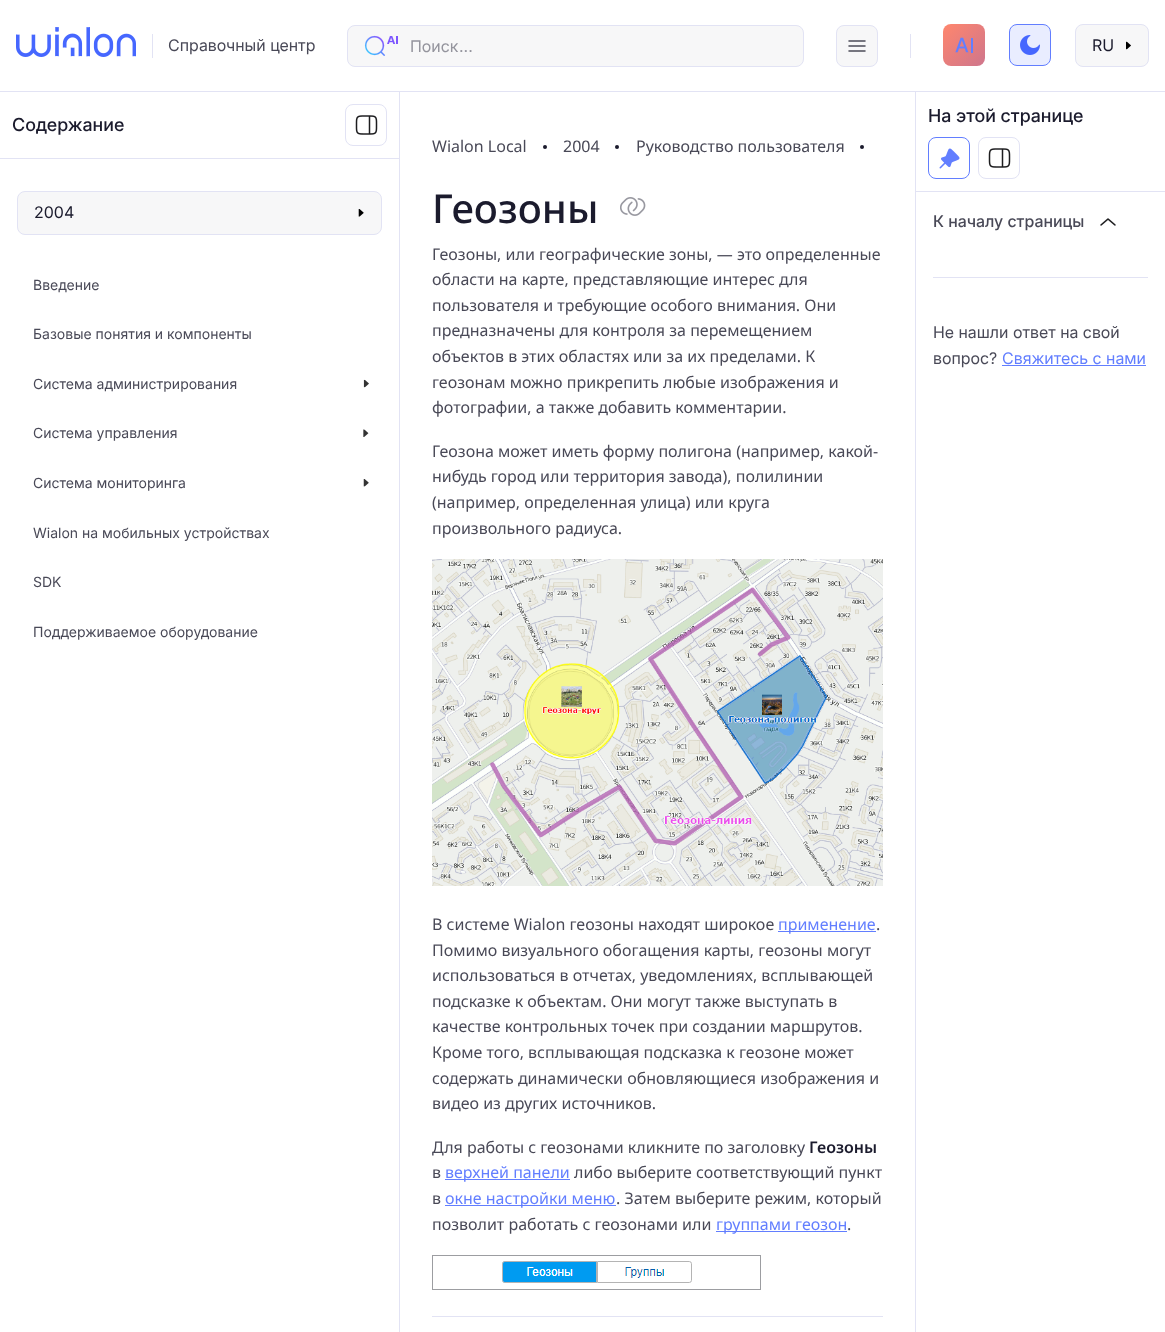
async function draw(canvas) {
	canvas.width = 1165;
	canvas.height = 1332;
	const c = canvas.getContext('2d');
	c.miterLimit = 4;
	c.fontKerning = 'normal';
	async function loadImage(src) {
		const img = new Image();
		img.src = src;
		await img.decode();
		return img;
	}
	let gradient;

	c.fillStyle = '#fff';
	c.fillRect(0, 0, 1165, 1332);
	c.fillStyle = '#e2e3f4';
	c.fillRect(0, 91, 1165, 1);
	c.drawImage(await loadImage('img1.png'), 16, 27, 120, 30);
	c.fillRect(152, 34, 1, 24);
	c.font = '16px Inter';
	c.fillStyle = '#494957';
	c.fillText('Справочный центр', 168, 51);
	c.fillStyle = '#f7f7f8';
	c.beginPath();
	c.roundRect(347.5, 25.5, 456, 41, 7.5);
	c.fill();
	c.strokeStyle = '#e2e3f4';
	c.stroke();
	c.drawImage(await loadImage('img2.png'), 364, 35, 34, 21);
	c.fillStyle = '#94949d';
	c.fillText('Поиск', 410, 52);
	c.font = '16px "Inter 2"';
	c.fillText('...', 459, 52);
	c.fillStyle = '#f7f7f8';
	c.beginPath();
	c.roundRect(836.5, 25.5, 41, 41, 7.5);
	c.fill();
	c.stroke();
	c.drawImage(await loadImage('img3.png'), 848, 40, 18, 12);
	c.fillStyle = '#e2e3f4';
	c.fillRect(910, 34, 1, 24);
	gradient = c.createLinearGradient(1111, -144, 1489, 234);
	gradient.addColorStop(0, '#ff866d');
	gradient.addColorStop(0.4, '#514bdf');
	gradient.addColorStop(0.6, '#14fbfb');
	gradient.addColorStop(0.8, '#514bdf');
	gradient.addColorStop(0.9, '#ff866d');
	gradient.addColorStop(1, '#dd6dff');
	c.fillStyle = gradient;
	c.beginPath();
	c.roundRect(943, 24, 42, 42, 8);
	c.fill();
	c.drawImage(await loadImage('img4.png'), 955, 37, 18, 16);
	c.fillStyle = '#e9edff';
	c.beginPath();
	c.roundRect(1009.5, 24.5, 41, 41, 7.5);
	c.fill();
	c.strokeStyle = '#627eff';
	c.stroke();
	c.drawImage(await loadImage('img5.png'), 1020, 35, 20, 20);
	c.fillStyle = '#f7f7f8';
	c.beginPath();
	c.roundRect(1075.5, 24.5, 73, 42, 7.5);
	c.fill();
	c.strokeStyle = '#e2e3f4';
	c.stroke();
	c.fillStyle = '#1b1b2d';
	c.fillText('RU', 1092, 51);
	c.drawImage(await loadImage('img6.png'), 1126, 41, 5, 9);
	c.fillStyle = '#e2e3f4';
	c.fillRect(399, 92, 1, 1240);
	c.fillRect(0, 158, 399, 1);
	c.font = '500 18px Inter';
	c.fillStyle = '#1b1b2d';
	c.fillText('Содержание', 12, 131);
	c.beginPath();
	c.roundRect(345.5, 104.5, 41, 41, 7.5);
	c.stroke();
	c.drawImage(await loadImage('img7.png'), 355, 115, 23, 20);
	c.fillStyle = '#f7f7f8';
	c.beginPath();
	c.roundRect(17.5, 191.5, 364, 43, 7.5);
	c.fill();
	c.stroke();
	c.font = '16px "Inter 2"';
	c.fillStyle = '#1b1b2d';
	c.fillText('2004', 34, 218);
	c.drawImage(await loadImage('img8.png'), 358, 209, 6, 8);
	c.font = '14px "Inter 2"';
	c.fillStyle = '#494957';
	for (const [text, x, y] of [
		['Введение', 33, 290],
		['Базовые понятия и компоненты', 33, 339],
		['Система администрирования', 33, 389],
	]) {
		c.fillText(text, x, y);
	}
	c.drawImage(await loadImage('img9.png'), 363, 379, 6, 9);
	c.fillText('Система управления', 33, 438);
	c.drawImage(await loadImage('img10.png'), 363, 429, 6, 8);
	c.fillText('Система мониторинга', 33, 488);
	c.drawImage(await loadImage('img11.png'), 363, 479, 6, 8);
	for (const [text, x, y] of [
		['Wialon на мобильных устройствах', 33, 538],
		['SDK', 33, 587],
		['Поддерживаемое оборудование', 33, 637],
	]) {
		c.fillText(text, x, y);
	}
	c.font = '16px Noto Sans';
	c.fillText('Wialon Local', 432, 152);
	c.fillStyle = '#1b1b2d';
	c.beginPath();
	c.arc(545, 147, 2, 0, 2 * Math.PI);
	c.fill();
	c.fillStyle = '#494957';
	c.fillText('2004', 563, 152);
	c.fillStyle = '#1b1b2d';
	c.beginPath();
	c.arc(617, 147, 2, 0, 2 * Math.PI);
	c.fill();
	c.fillStyle = '#494957';
	c.fillText('Руководство пользователя', 636, 152);
	c.fillStyle = '#1b1b2d';
	c.beginPath();
	c.arc(862, 147, 2, 0, 2 * Math.PI);
	c.fill();
	c.font = '500 40px Noto Sans';
	c.fillText('Геозоны', 432, 223);
	c.drawImage(await loadImage('img12.png'), 620, 197, 26, 19);
	c.font = '16px Noto Sans';
	c.fillStyle = '#494957';
	for (const [text, x, y] of [
		['Геозоны, или географические зоны, — это определенные', 432, 260],
		['области на карте, представляющие интерес для', 432, 285],
		['пользователя и требующие особого внимания. Они', 432, 311],
		['предназначены для контроля за перемещением', 432, 336],
		['объектов в этих областях или за их пределами. К', 432, 362],
		['геозонам можно прикрепить любые изображения и', 432, 388],
		['фотографии, а также добавить комментарии.', 432, 413],
		['Геозона может иметь форму полигона (например, какой-', 432, 457],
		['нибудь город или территория завода), полилинии', 432, 482],
		['(например, определенная улица) или круга', 432, 508],
		['произвольного радиуса.', 432, 534],
	]) {
		c.fillText(text, x, y);
	}
	c.drawImage(await loadImage('img13.png'), 432, 559, 451, 327);
	c.fillText('В системе Wialon геозоны находят широкое', 432, 930);
	c.fillStyle = '#627eff';
	c.fillRect(778, 931, 98, 1);
	c.fillText('применение', 778, 930);
	c.fillStyle = '#494957';
	for (const [text, x, y] of [
		['.', 876, 930],
		['Помимо визуального обогащения карты, геозоны могут', 432, 956],
		['использоваться в отчетах, уведомлениях, всплывающей', 432, 981],
		['подсказке к объектам. Они могут также выступать в', 432, 1007],
		['качестве контрольных точек при создании маршрутов.', 432, 1032],
		['Кроме того, всплывающая подсказка к геозоне может', 432, 1058],
		['содержать динамически обновляющиеся изображения и', 432, 1084],
		['видео из других источников.', 432, 1109],
		['Для работы с геозонами кликните по заголовку', 432, 1153],
	]) {
		c.fillText(text, x, y);
	}
	c.font = '600 16px Noto Sans';
	c.fillStyle = '#1b1b2d';
	c.fillText('Геозоны', 809, 1153);
	c.font = '16px Noto Sans';
	c.fillStyle = '#494957';
	c.fillText('в', 432, 1178);
	c.fillStyle = '#627eff';
	c.fillRect(445, 1179, 125, 1);
	c.fillText('верхней панели', 445, 1178);
	c.fillStyle = '#494957';
	c.fillText('либо выберите соответствующий пункт', 574, 1178);
	c.fillText('в', 432, 1204);
	c.fillStyle = '#627eff';
	c.fillRect(445, 1205, 171, 1);
	c.fillText('окне настройки меню', 445, 1204);
	c.fillStyle = '#494957';
	c.fillText('. Затем выберите режим, который', 616, 1204);
	c.fillText('позволит работать с геозонами или', 432, 1230);
	c.fillStyle = '#627eff';
	c.fillRect(716, 1231, 131, 1);
	c.fillText('группами геозон', 716, 1230);
	c.fillStyle = '#494957';
	c.fillText('.', 847, 1230);
	c.drawImage(await loadImage('img14.png'), 432, 1255, 329, 35);
	for (const [x, y, w, h, color] of [
		[432, 1316, 451, 1, '#e2e3f4'],
		[915, 92, 1, 1240, '#e2e3f4'],
		[916, 191, 249, 1, '#e2e3f4'],
	]) {
		c.fillStyle = color;
		c.fillRect(x, y, w, h);
	}
	c.font = '500 18px Inter';
	c.fillStyle = '#1b1b2d';
	c.fillText('На этой странице', 928, 122);
	c.beginPath();
	c.roundRect(928.5, 137.5, 41, 41, 7.5);
	c.strokeStyle = '#627eff';
	c.stroke();
	c.drawImage(await loadImage('img15.png'), 939, 148, 21, 21);
	c.beginPath();
	c.roundRect(978.5, 137.5, 41, 41, 7.5);
	c.strokeStyle = '#e2e3f4';
	c.stroke();
	c.drawImage(await loadImage('img7.png'), 988, 148, 23, 20);
	c.font = '500 16px "Inter 2"';
	c.fillStyle = '#494957';
	c.fillText('К началу страницы', 933, 227);
	c.drawImage(await loadImage('img16.png'), 1100, 218, 16, 8);
	c.fillStyle = '#e2e3f4';
	c.fillRect(933, 277, 215, 1);
	c.font = '16px Inter';
	c.fillStyle = '#494957';
	c.fillText('Не нашли ответ на свой', 933, 338);
	c.fillText('вопрос', 933, 364);
	c.font = '16px "Inter 2"';
	c.fillText('?', 989, 364);
	c.font = '16px Inter';
	c.fillStyle = '#627eff';
	c.fillText('Свяжитесь с нами', 1002, 364);
	c.fillRect(1002, 365, 144, 1);
}

draw(document.querySelector('canvas'));
